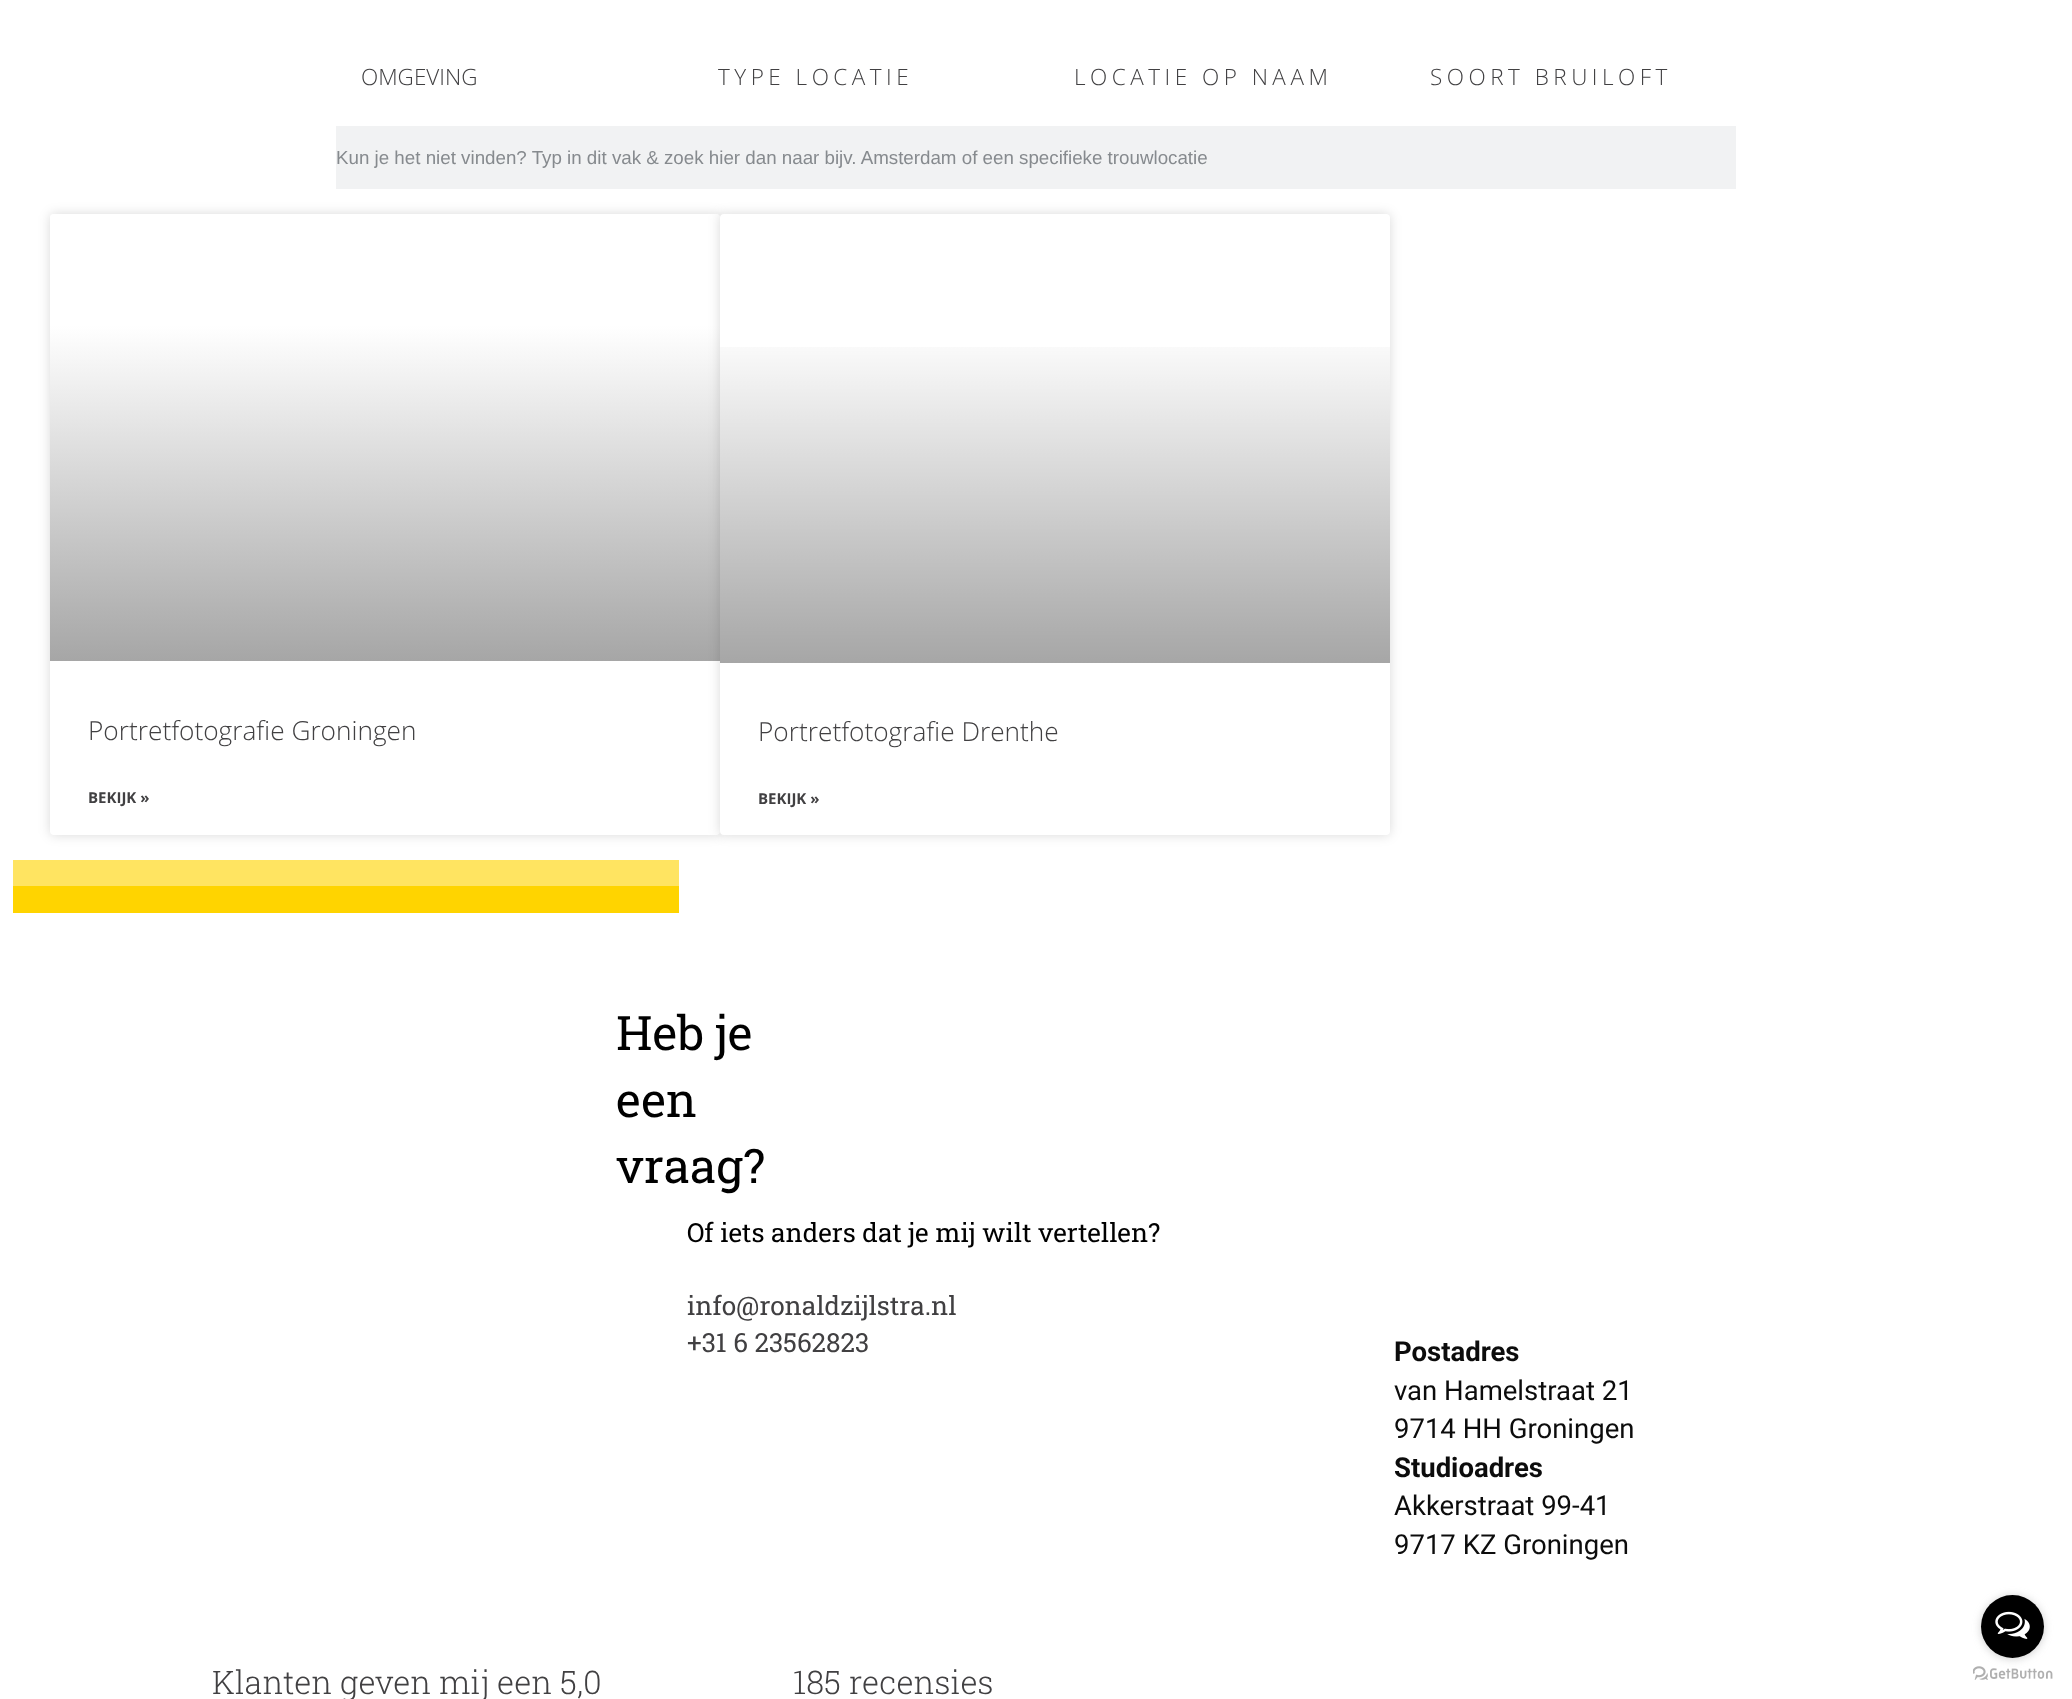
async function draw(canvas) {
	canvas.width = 2072;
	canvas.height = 1699;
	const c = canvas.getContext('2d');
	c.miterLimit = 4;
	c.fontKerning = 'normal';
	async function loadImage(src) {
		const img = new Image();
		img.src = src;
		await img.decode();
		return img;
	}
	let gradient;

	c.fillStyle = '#fff';
	c.fillRect(0, 0, 2072, 1699);
	c.font = '300 22.5px Open Sans';
	c.fillStyle = '#414042';
	c.fillText('OMGEVING', 361, 85);
	c.letterSpacing = '4.5px';
	for (const [text, x, y] of [
		['TYPE LOCATIE', 718, 85],
		['LOCATIE OP NAAM', 1074, 85],
		['SOORT BRUILOFT', 1430, 85],
	]) {
		c.fillText(text, x, y);
	}
	c.fillStyle = '#f1f2f3';
	c.fillRect(336, 126, 1400, 63);
	c.letterSpacing = '0px';
	c.font = '18.75px Liberation Sans';
	c.fillStyle = '#868a8e';
	c.fillText('Kun je het niet vinden? Typ in dit vak & zoek hier dan naar bijv. Amsterdam of een specifieke trouwlocatie', 336, 164);
	c.fillStyle = '#00000026';
	c.filter = 'blur(6px)';
	c.beginPath();
	c.roundRect(50, 214, 670, 621, 4);
	c.fill();
	c.filter = 'none';
	c.fillStyle = '#fff';
	c.beginPath();
	c.roundRect(50, 214, 670, 621, 4);
	c.fill();
	gradient = c.createLinearGradient(385, 661, 385, 214);
	gradient.addColorStop(0, '#a6a6a6');
	gradient.addColorStop(0.75, '#fff');
	c.fillStyle = gradient;
	c.beginPath();
	c.roundRect(50, 214, 670, 447, [4, 4, 0, 0]);
	c.fill();
	c.font = '300 26.25px Open Sans';
	c.fillStyle = '#414042';
	c.fillText('Portretfotografie Groningen', 88, 740);
	c.font = 'bold 15px Open Sans';
	c.fillText('BEKIJK »', 88, 803);
	c.fillStyle = '#00000026';
	c.filter = 'blur(6px)';
	c.beginPath();
	c.roundRect(720, 214, 670, 621, 4);
	c.fill();
	c.filter = 'none';
	c.fillStyle = '#fff';
	c.beginPath();
	c.roundRect(720, 214, 670, 621, 4);
	c.fill();
	gradient = c.createLinearGradient(1055, 663, 1055, 214);
	gradient.addColorStop(0, '#00000059');
	gradient.addColorStop(0.75, '#00000000');
	c.fillStyle = gradient;
	c.fillRect(720, 347, 670, 316);
	c.font = '300 26.25px Open Sans';
	c.fillStyle = '#414042';
	c.fillText('Portretfotografie Drenthe', 758, 741);
	c.font = 'bold 15px Open Sans';
	c.fillText('BEKIJK »', 758, 804);
	c.fillStyle = '#ffe461';
	c.fillRect(13, 860, 666, 26);
	c.fillStyle = '#ffd400';
	c.fillRect(13, 886, 666, 27);
	c.font = '47.5px Roboto Slab';
	c.fillStyle = '#000';
	for (const [text, x, y] of [
		['Heb je', 616, 1050],
		['een', 616, 1117],
		['vraag?', 616, 1183],
	]) {
		c.fillText(text, x, y);
	}
	c.font = '26.25px Roboto Slab';
	c.fillText('Of iets anders dat je mij wilt vertellen?', 687, 1242);
	c.fillStyle = '#414042';
	c.fillText('info@ronaldzijlstra.nl', 687, 1315);
	c.fillText('+31 6 23562823', 687, 1352);
	c.font = 'bold 27.5px Roboto';
	c.fillStyle = '#0c0c0c';
	c.fillText('Postadres', 1394, 1361);
	c.font = '27.5px Roboto';
	c.fillText('van Hamelstraat 21', 1394, 1400);
	c.fillText('9714 HH Groningen', 1394, 1438);
	c.font = 'bold 27.5px Roboto';
	c.fillText('Studioadres', 1394, 1477);
	c.font = '27.5px Roboto';
	c.fillText('Akkerstraat 99-41', 1394, 1515);
	c.fillText('9717 KZ Groningen', 1394, 1554);
	c.font = '300 32.5px Roboto Slab';
	c.fillStyle = '#414042';
	c.fillText('Klanten geven mij een 5,0', 212, 1694);
	c.fillText('185 recensies', 793, 1694);
	c.drawImage(await loadImage('img2.png'), 1973, 1666, 80, 14);
	c.fillStyle = '#88888866';
	c.filter = 'blur(4.5px)';
	c.beginPath();
	c.roundRect(1981, 1596, 63, 63, 31.5);
	c.fill();
	c.filter = 'none';
	c.fillStyle = '#000';
	c.beginPath();
	c.arc(2012.5, 1626.5, 31.5, 0, 2 * Math.PI);
	c.fill();
	c.drawImage(await loadImage('img1.png'), 1995, 1611, 35, 28);
}

draw(document.querySelector('canvas'));
